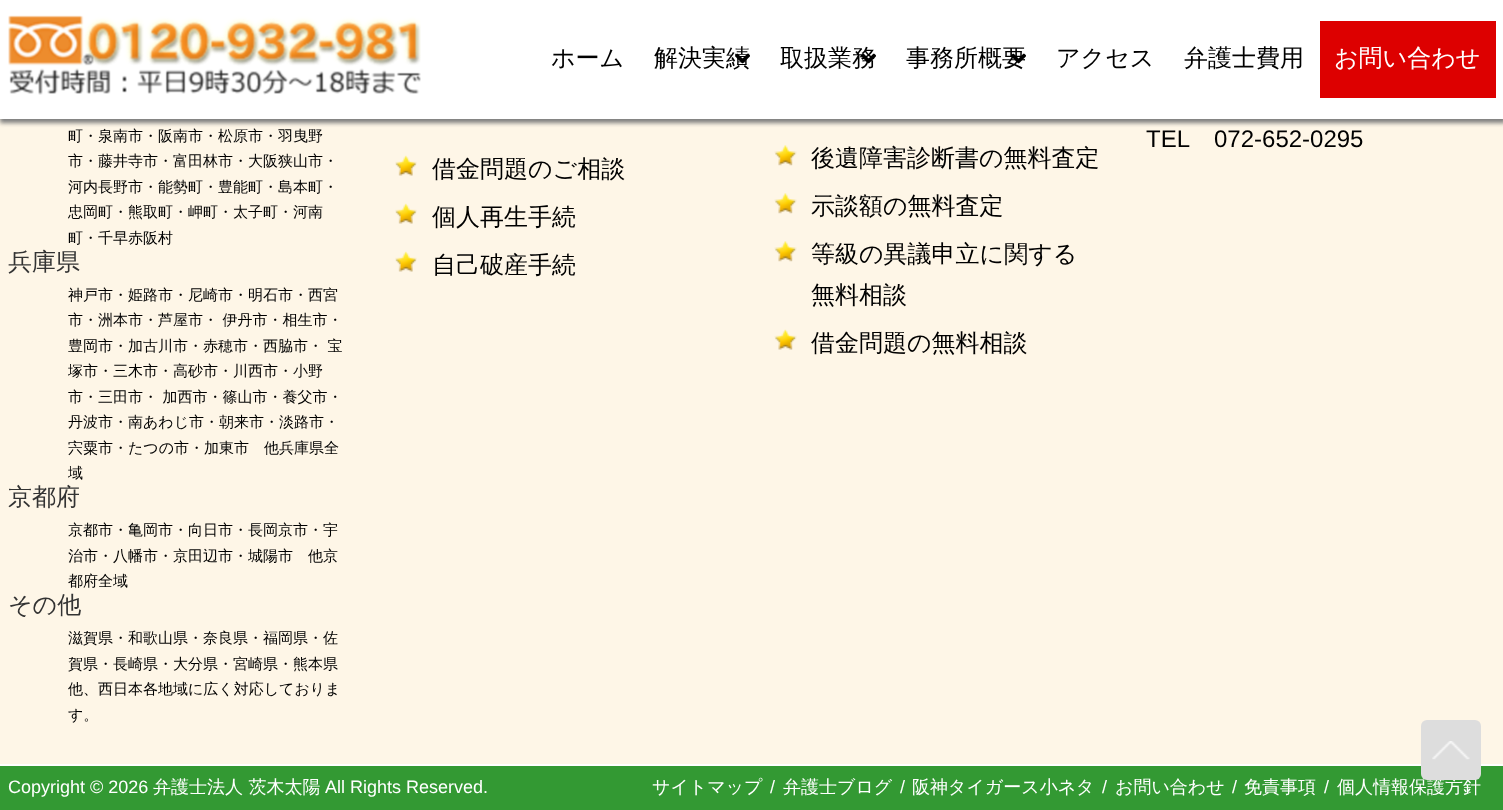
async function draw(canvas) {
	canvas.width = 1503;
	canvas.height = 810;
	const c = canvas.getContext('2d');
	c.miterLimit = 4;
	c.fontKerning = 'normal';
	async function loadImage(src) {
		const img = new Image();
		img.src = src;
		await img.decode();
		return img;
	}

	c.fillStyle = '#fef6e7';
	c.fillRect(0, 0, 1503, 810);
	c.fillStyle = '#7e7e7e';
	c.filter = 'blur(2px)';
	c.beginPath();
	c.rect(0, 2, 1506, 121);
	c.fill();
	c.filter = 'none';
	c.fillStyle = '#fff';
	c.fillRect(0, 0, 1503, 119);
	c.drawImage(await loadImage('img1.png'), 8, 15, 413, 80);
	c.font = '500 24px WenQuanYi Zen Hei';
	c.fillStyle = '#000';
	c.fillText('ホーム', 551, 66);
	c.fillText('解決実績', 654, 66);
	c.drawImage(await loadImage('img2.png'), 735, 53, 15, 11);
	c.fillText('取扱業務', 780, 66);
	c.drawImage(await loadImage('img3.png'), 861, 53, 15, 11);
	c.fillText('事務所概要', 906, 66);
	c.drawImage(await loadImage('img4.png'), 1011, 53, 15, 11);
	c.fillText('アクセス', 1056, 66);
	c.fillText('弁護士費用', 1184, 66);
	c.fillStyle = '#d00';
	c.fillRect(1320, 21, 176, 77);
	c.fillStyle = '#fff';
	c.fillText('お問い合わせ', 1334, 66);
	c.font = '500 15px WenQuanYi Zen Hei';
	c.fillStyle = '#000';
	for (const [text, x, y] of [
		['町・泉南市・阪南市・松原市・羽曳野', 68, 141],
		['市・藤井寺市・富田林市・大阪狭山市・', 68, 166],
		['河内長野市・能勢町・豊能町・島本町・', 68, 192],
		['忠岡町・熊取町・岬町・太子町・河南', 68, 217],
		['町・千早赤阪村', 68, 243],
	]) {
		c.fillText(text, x, y);
	}
	c.font = '500 24px WenQuanYi Zen Hei';
	c.fillStyle = '#333';
	c.fillText('兵庫県', 8, 270);
	c.font = '500 15px WenQuanYi Zen Hei';
	c.fillStyle = '#000';
	for (const [text, x, y] of [
		['神戸市・姫路市・尼崎市・明石市・西宮', 68, 300],
		['市・洲本市・芦屋市・ 伊丹市・相生市・', 68, 325],
		['豊岡市・加古川市・赤穂市・西脇市・ 宝', 68, 351],
		['塚市・三木市・高砂市・川西市・小野', 68, 376],
		['市・三田市・ 加西市・篠山市・養父市・', 68, 402],
		['丹波市・南あわじ市・朝来市・淡路市・', 68, 427],
		['宍粟市・たつの市・加東市　他兵庫県全', 68, 453],
		['域', 68, 478],
	]) {
		c.fillText(text, x, y);
	}
	c.font = '500 24px WenQuanYi Zen Hei';
	c.fillStyle = '#333';
	c.fillText('京都府', 8, 505);
	c.font = '500 15px WenQuanYi Zen Hei';
	c.fillStyle = '#000';
	for (const [text, x, y] of [
		['京都市・亀岡市・向日市・長岡京市・宇', 68, 535],
		['治市・八幡市・京田辺市・城陽市　他京', 68, 561],
		['都府全域', 68, 586],
	]) {
		c.fillText(text, x, y);
	}
	c.font = '500 24px WenQuanYi Zen Hei';
	c.fillStyle = '#333';
	c.fillText('その他', 8, 613);
	c.font = '500 15px WenQuanYi Zen Hei';
	c.fillStyle = '#000';
	for (const [text, x, y] of [
		['滋賀県・和歌山県・奈良県・福岡県・佐', 68, 643],
		['賀県・長崎県・大分県・宮崎県・熊本県', 68, 669],
		['他、西日本各地域に広く対応しておりま', 68, 694],
		['す。', 68, 720],
	]) {
		c.fillText(text, x, y);
	}
	c.font = '24px Liberation Sans';
	c.fillText('TEL', 1146, 147);
	c.fillText('072-652-0295', 1214, 147);
	c.drawImage(await loadImage('img5.png'), 395, 155, 22, 21);
	c.font = '500 24px WenQuanYi Zen Hei';
	c.fillText('借金問題のご相談', 432, 177);
	c.drawImage(await loadImage('img5.png'), 395, 203, 22, 21);
	c.fillText('個人再生手続', 432, 225);
	c.drawImage(await loadImage('img5.png'), 395, 251, 22, 21);
	c.fillText('自己破産手続', 432, 273);
	c.drawImage(await loadImage('img6.png'), 774, 145, 23, 21);
	c.fillText('後遺障害診断書の無料査定', 811, 166);
	c.drawImage(await loadImage('img6.png'), 774, 193, 23, 21);
	c.fillText('示談額の無料査定', 811, 214);
	c.drawImage(await loadImage('img6.png'), 774, 241, 23, 21);
	c.fillText('等級の異議申立に関する', 811, 262);
	c.fillText('無料相談', 811, 303);
	c.drawImage(await loadImage('img7.png'), 774, 329, 23, 21);
	c.fillText('借金問題の無料相談', 811, 351);
	c.fillStyle = '#393';
	c.fillRect(0, 766, 1503, 44);
	c.fillStyle = '#fff';
	c.fillRect(0, 764, 1503, 2);
	c.font = '500 18px WenQuanYi Zen Hei';
	c.fillText('個人情報保護方針', 1337, 793);
	c.fillStyle = '#ddd';
	c.beginPath();
	c.roundRect(1421, 720, 60, 60, 6);
	c.fill();
	c.drawImage(await loadImage('img8.png'), 1432, 741, 38, 19);
	c.font = '18px Liberation Sans';
	c.fillStyle = '#fff';
	c.fillText('Copyright © 2026', 8, 793);
	c.font = '500 18px WenQuanYi Zen Hei';
	c.fillText('弁護士法人 茨木太陽', 153, 793);
	c.font = '18px Liberation Sans';
	c.fillText('All Rights Reserved.', 325, 793);
	c.font = '500 18px WenQuanYi Zen Hei';
	c.fillText('サイトマップ', 652, 793);
	c.font = '18px Liberation Sans';
	c.fillText('/', 770, 793);
	c.font = '500 18px WenQuanYi Zen Hei';
	c.fillText('弁護士ブログ', 783, 793);
	c.font = '18px Liberation Sans';
	c.fillText('/', 900, 793);
	c.font = '500 18px WenQuanYi Zen Hei';
	c.fillText('阪神タイガース小ネタ', 912, 793);
	c.font = '18px Liberation Sans';
	c.fillText('/', 1102, 793);
	c.font = '500 18px WenQuanYi Zen Hei';
	c.fillText('お問い合わせ', 1115, 793);
	c.font = '18px Liberation Sans';
	c.fillText('/', 1232, 793);
	c.font = '500 18px WenQuanYi Zen Hei';
	c.fillText('免責事項', 1244, 793);
	c.font = '18px Liberation Sans';
	c.fillText('/', 1324, 793);
}

draw(document.querySelector('canvas'));
